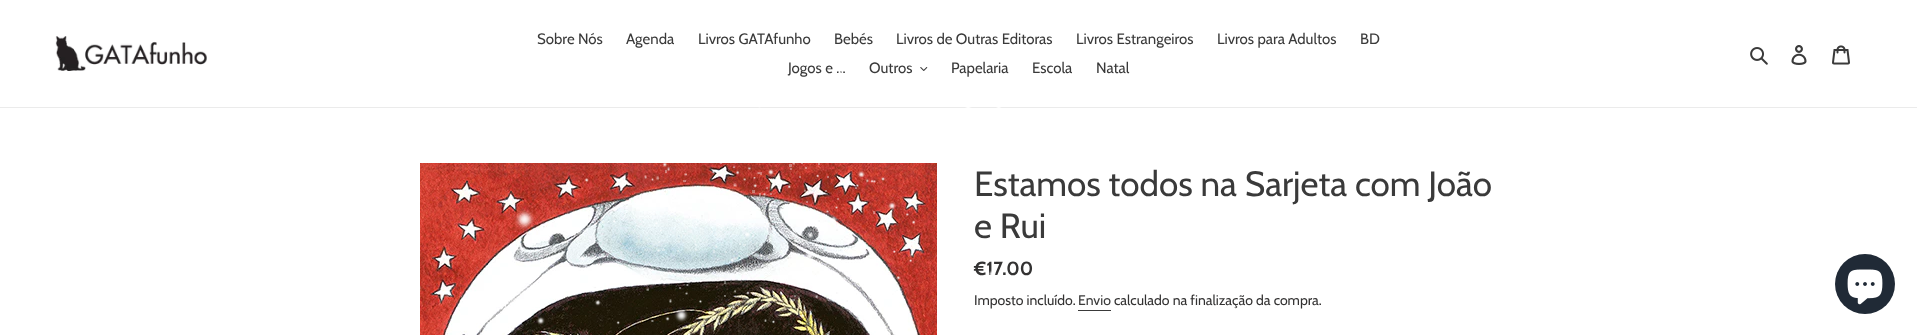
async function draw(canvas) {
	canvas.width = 1917;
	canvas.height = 335;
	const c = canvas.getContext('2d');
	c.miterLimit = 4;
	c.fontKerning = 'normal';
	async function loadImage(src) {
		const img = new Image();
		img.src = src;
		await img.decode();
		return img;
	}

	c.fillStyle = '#fff';
	c.fillRect(0, 0, 1917, 335);
	c.fillStyle = '#ebebeb';
	c.fillRect(0, 107, 1917, 1);
	c.drawImage(await loadImage('img1.png'), 55, 36, 152, 35);
	c.font = '15px Cabin';
	c.fillStyle = '#3a3a3a';
	for (const [text, x, y] of [
		['Sobre Nós', 537, 44],
		['Agenda', 626, 44],
		['Livros GATAfunho', 698, 44],
		['Bebés', 834, 44],
		['Livros de Outras Editoras', 896, 44],
		['Livros Estrangeiros', 1076, 44],
		['Livros para Adultos', 1217, 44],
		['BD', 1360, 44],
		['Jogos e ...', 788, 73],
		['Outros', 869, 73],
	]) {
		c.fillText(text, x, y);
	}
	c.drawImage(await loadImage('img2.png'), 920, 67, 8, 4);
	for (const [text, x, y] of [
		['Papelaria', 951, 73],
		['Escola', 1032, 73],
		['Natal', 1096, 73],
	]) {
		c.fillText(text, x, y);
	}
	c.drawImage(await loadImage('img3.png'), 1750, 47, 18, 18);
	c.drawImage(await loadImage('img4.png'), 1791, 45, 16, 20);
	c.drawImage(await loadImage('img5.png'), 1832, 45, 18, 20);
	c.drawImage(await loadImage('img7.png'), 420, 163, 517, 172);
	c.font = '35px Cabin';
	c.fillText('Estamos todos na Sarjeta com João', 974, 196);
	c.fillText('e Rui', 974, 238);
	c.font = 'bold 19px Cabin';
	c.fillStyle = '#333232';
	c.fillText('€17.00', 974, 275);
	c.font = '14px Cabin';
	c.fillText('Imposto incluído.', 974, 305);
	c.fillStyle = '#3a3a3a';
	c.fillText('Envio', 1078, 305);
	c.fillRect(1078, 310, 33, 1);
	c.fillStyle = '#333232';
	c.fillText('calculado na finalização da compra.', 1114, 305);
	c.drawImage(await loadImage('img6.png'), 420, 67, 704, 268);
	c.fillStyle = '#202a36';
	c.beginPath();
	c.arc(1865, 284, 30, 0, 2 * Math.PI);
	c.fill();
	c.drawImage(await loadImage('img8.png'), 1847, 269, 36, 36);
}

draw(document.querySelector('canvas'));
